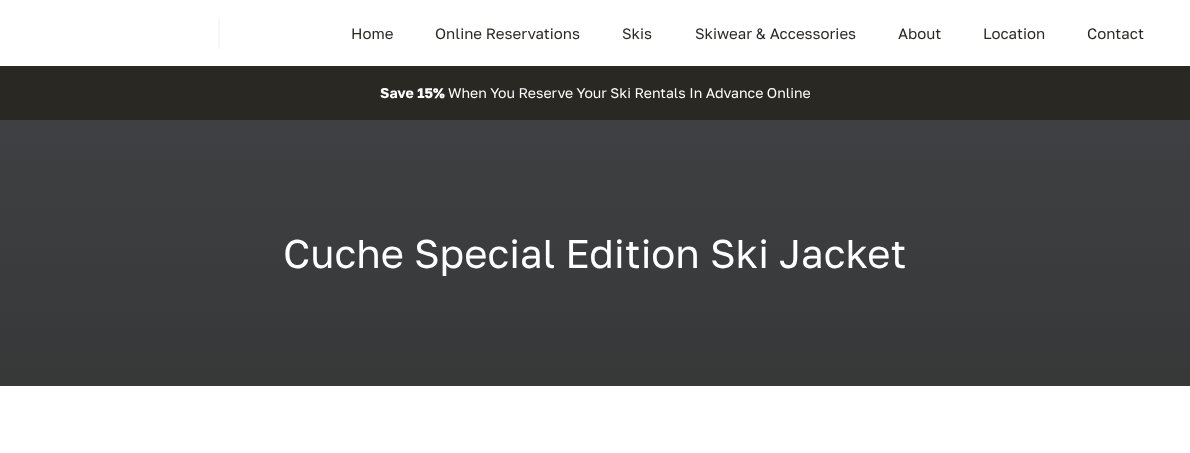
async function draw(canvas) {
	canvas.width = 1190;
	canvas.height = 453;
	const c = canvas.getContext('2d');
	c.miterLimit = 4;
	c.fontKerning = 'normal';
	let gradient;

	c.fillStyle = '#fff';
	c.fillRect(0, 0, 1190, 453);
	c.fillStyle = '#f7f7f7';
	c.fillRect(218, 17, 2, 32);
	c.font = '15px Golos Text';
	c.fillStyle = '#292823';
	for (const [text, x, y] of [
		['Home', 351, 39],
		['Online Reservations', 435, 39],
		['Skis', 622, 39],
		['Skiwear & Accessories', 695, 39],
		['About', 898, 39],
		['Location', 983, 39],
		['Contact', 1087, 39],
	]) {
		c.fillText(text, x, y);
	}
	c.fillRect(0, 66, 1190, 54);
	c.font = 'bold 14px Golos Text';
	c.fillStyle = '#fff';
	c.fillText('Save 15%', 380, 98);
	c.font = '14px Golos Text';
	c.fillText('When You Reserve Your Ski Rentals In Advance Online', 448, 98);
	gradient = c.createLinearGradient(595, 120, 595, 386);
	gradient.addColorStop(0, '#3f4043');
	gradient.addColorStop(1, '#373838');
	c.fillStyle = gradient;
	c.fillRect(0, 120, 1190, 266);
	c.font = '40px Golos Text';
	c.fillStyle = '#fff';
	c.fillText('Cuche Special Edition Ski Jacket', 283, 268);
}

draw(document.querySelector('canvas'));
